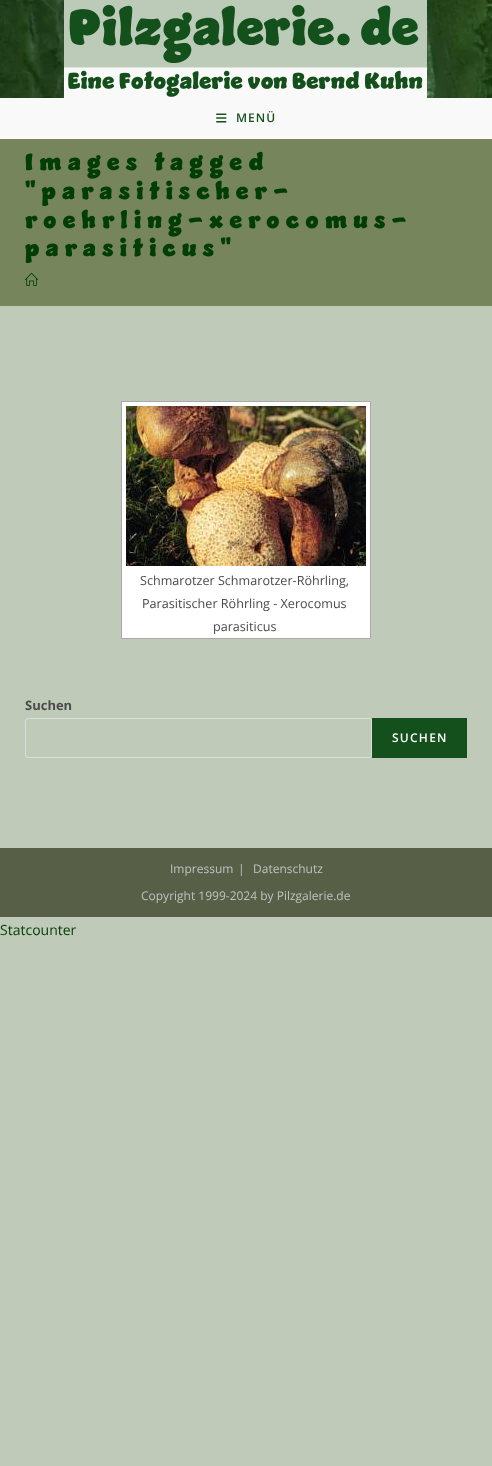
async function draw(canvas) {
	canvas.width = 492;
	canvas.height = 1466;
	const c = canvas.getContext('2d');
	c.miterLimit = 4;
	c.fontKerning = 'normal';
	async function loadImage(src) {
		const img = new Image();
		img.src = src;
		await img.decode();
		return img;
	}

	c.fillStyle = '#bfcab8';
	c.fillRect(0, 0, 492, 1466);
	c.drawImage(await loadImage('img1.png'), 0, 0, 492, 98);
	c.fillStyle = '#fff';
	c.fillRect(0, 138, 492, 1);
	c.fillStyle = '#04510061';
	c.fillRect(0, 0, 492, 98);
	c.drawImage(await loadImage('img2.png'), 64, 0, 363, 98);
	c.fillStyle = '#f9f9f9';
	c.fillRect(0, 98, 492, 40);
	c.drawImage(await loadImage('img3.png'), 216, 113, 11, 10);
	c.letterSpacing = '1px';
	c.font = '600 12px Open Sans';
	c.fillStyle = '#13501b';
	c.fillText('MENÜ', 236, 122);
	c.fillStyle = '#76855c';
	c.fillRect(0, 139, 492, 167);
	c.drawImage(await loadImage('img4.png'), 25, 151, 238, 28);
	c.drawImage(await loadImage('img5.png'), 25, 180, 263, 26);
	c.drawImage(await loadImage('img6.png'), 25, 209, 381, 28);
	c.drawImage(await loadImage('img7.png'), 25, 237, 206, 27);
	c.drawImage(await loadImage('img8.png'), 25, 272, 13, 14);
	c.fillStyle = '#fff';
	c.beginPath();
	c.rect(121.5, 401.5, 249, 237);
	c.fill();
	c.strokeStyle = '#a9a9a9';
	c.stroke();
	c.drawImage(await loadImage('img9.png'), 126, 406, 240, 160);
	c.letterSpacing = '0px';
	c.font = '12.6px Open Sans';
	c.fillStyle = '#4a4a4a';
	for (const [text, x, y] of [
		['Schmarotzer Schmarotzer-Röhrling,', 140, 585],
		['Parasitischer Röhrling - Xerocomus', 142, 608],
		['parasiticus', 213, 631],
	]) {
		c.fillText(text, x, y);
	}
	c.font = 'bold 13px Open Sans';
	c.fillText('Suchen', 25, 710);
	c.beginPath();
	c.roundRect(25.5, 718.5, 346, 39, 2.5);
	c.strokeStyle = '#ddd';
	c.stroke();
	c.fillStyle = '#13501b';
	c.fillRect(372, 718, 95, 40);
	c.letterSpacing = '1.25px';
	c.font = '600 12px Open Sans';
	c.fillStyle = '#fff';
	c.fillText('SUCHEN', 392, 742);
	c.fillStyle = '#576047';
	c.fillRect(0, 848, 492, 69);
	c.letterSpacing = '0px';
	c.font = '12px Open Sans';
	c.fillStyle = '#c0c0c0';
	for (const [text, x, y] of [
		['Impressum', 170, 873],
		['|', 238, 873],
		['Datenschutz', 253, 873],
		['Copyright 1999-2024 by Pilzgalerie.de', 141, 900],
	]) {
		c.fillText(text, x, y);
	}
	c.font = '14px Open Sans';
	c.fillStyle = '#013d05';
	c.fillText('Statcounter', 0, 935);
}

draw(document.querySelector('canvas'));
